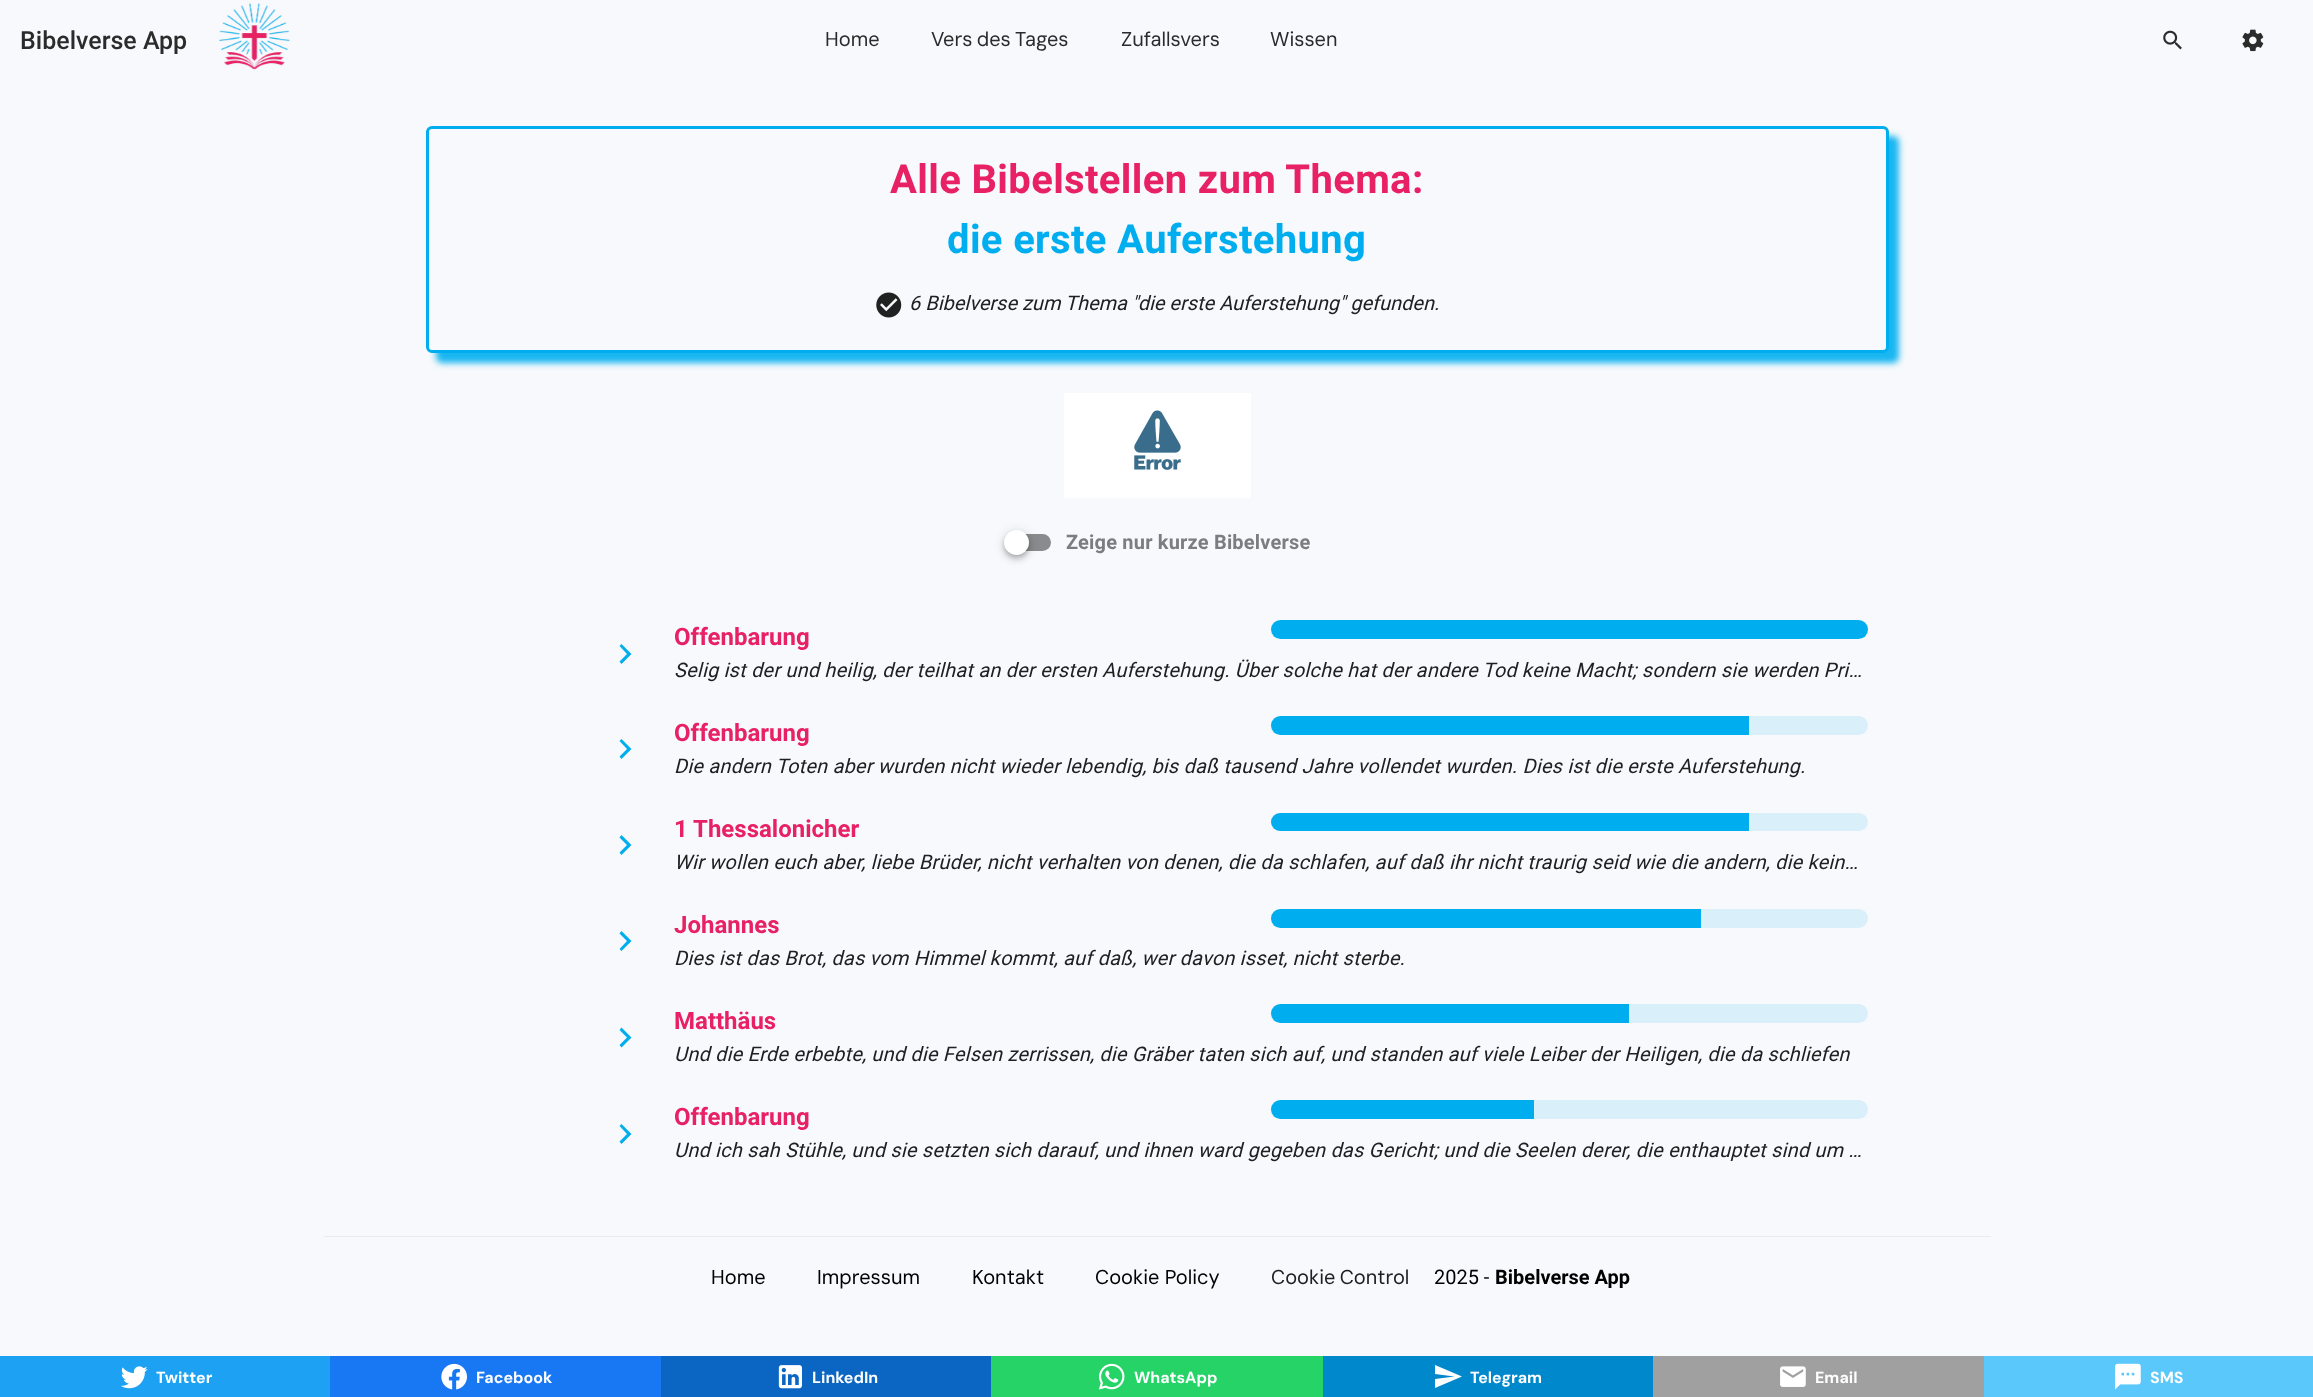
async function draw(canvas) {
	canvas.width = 2313;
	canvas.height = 1397;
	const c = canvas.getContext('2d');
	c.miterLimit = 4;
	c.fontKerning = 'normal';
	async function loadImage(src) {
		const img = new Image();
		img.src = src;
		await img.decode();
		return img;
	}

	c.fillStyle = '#f7f9fc';
	c.fillRect(0, 0, 2313, 1397);
	c.font = '500 25px Roboto';
	c.fillStyle = '#2b2b2b';
	c.fillText('Bibelverse App', 20, 49);
	c.drawImage(await loadImage('img1.png'), 219, 3, 71, 67);
	c.font = '20px DM Sans';
	c.fillText('Home', 825, 46);
	c.wordSpacing = '-1px';
	c.fillText('Vers des Tages', 931, 46);
	c.wordSpacing = '0px';
	c.fillText('Zufallsvers', 1121, 46);
	c.fillText('Wissen', 1270, 46);
	c.drawImage(await loadImage('img2.png'), 2163, 30, 19, 20);
	c.drawImage(await loadImage('img3.png'), 2242, 29, 22, 23);
	c.fillStyle = '#00aeefe6';
	c.filter = 'blur(3px)';
	c.beginPath();
	c.roundRect(436, 136, 1463, 227, 6);
	c.fill();
	c.filter = 'none';
	c.fillStyle = '#f7f9fc';
	c.beginPath();
	c.roundRect(427.5, 127.5, 1460, 224, 4.5);
	c.fill();
	c.strokeStyle = '#00aeef';
	c.lineWidth = 3;
	c.stroke();
	c.letterSpacing = '0.35px';
	c.font = 'bold 40px Roboto';
	c.fillStyle = '#e82064';
	c.fillText('Alle Bibelstellen zum Thema:', 890, 193);
	c.fillStyle = '#00aeef';
	c.fillText('die erste Auferstehung', 947, 253);
	c.drawImage(await loadImage('img4.png'), 876, 292, 26, 26);
	c.letterSpacing = '0px';
	c.font = 'italic 20px Roboto';
	c.fillStyle = '#202021';
	c.fillText('6 Bibelverse zum Thema "die erste Auferstehung" gefunden.', 909, 310);
	c.drawImage(await loadImage('img5.png'), 1064, 393, 187, 105);
	c.fillStyle = '#8a8b8c';
	c.beginPath();
	c.roundRect(1006, 534, 45, 17, 8.5);
	c.fill();
	c.fillStyle = '#0000001f';
	c.filter = 'blur(6px)';
	c.beginPath();
	c.roundRect(1004, 531, 25, 25, 12.5);
	c.fill();
	c.filter = 'none';
	c.fillStyle = '#00000024';
	c.filter = 'blur(3px)';
	c.beginPath();
	c.roundRect(1004, 535, 25, 25, 12.5);
	c.fill();
	c.filter = 'none';
	c.fillStyle = '#00000033';
	c.filter = 'blur(2.5px)';
	c.beginPath();
	c.roundRect(1005, 534, 23, 22, 11);
	c.fill();
	c.filter = 'none';
	c.fillStyle = '#fff';
	c.beginPath();
	c.arc(1016.5, 542.5, 12.5, 0, 2 * Math.PI);
	c.fill();
	c.letterSpacing = '0.19px';
	c.font = 'bold 20px Roboto';
	c.fillStyle = '#7d7d7f';
	c.fillText('Zeige nur kurze Bibelverse', 1066, 549);
	c.fillStyle = '#00aeef';
	c.beginPath();
	c.moveTo(619.5, 661.5);
	c.lineTo(627, 654);
	c.lineTo(619.5, 646);
	c.lineTo(621.5, 644);
	c.lineTo(631.5, 654);
	c.lineTo(621.5, 664);
	c.closePath();
	c.fill();
	c.letterSpacing = '0px';
	c.font = 'bold 24px Roboto';
	c.fillStyle = '#e82064';
	c.fillText('Offenbarung', 674, 645);
	c.fillStyle = '#00aeef';
	c.beginPath();
	c.roundRect(1271, 620, 597, 19, 9.5);
	c.fill();
	c.letterSpacing = '0.19px';
	c.font = 'italic 20px Roboto';
	c.fillStyle = '#202021';
	c.fillText('Selig ist der und heilig, der teilhat an der ersten Auferstehung. Über solche hat der andere Tod keine Macht; sondern sie werden Pri…', 674, 677);
	c.fillStyle = '#00aeef';
	c.beginPath();
	c.moveTo(619.5, 756.5);
	c.lineTo(627, 749);
	c.lineTo(619.5, 741);
	c.lineTo(621.5, 739);
	c.lineTo(631.5, 749);
	c.lineTo(621.5, 759);
	c.closePath();
	c.fill();
	c.letterSpacing = '0px';
	c.font = 'bold 24px Roboto';
	c.fillStyle = '#e82064';
	c.fillText('Offenbarung', 674, 741);
	c.fillStyle = '#d9f0fa';
	c.beginPath();
	c.roundRect(1271, 716, 597, 19, 9.5);
	c.fill();
	c.fillStyle = '#00aeef';
	c.beginPath();
	c.roundRect(1271, 716, 478, 19, [9.5, 0, 0, 9.5]);
	c.fill();
	c.letterSpacing = '0.19px';
	c.font = 'italic 20px Roboto';
	c.fillStyle = '#202021';
	c.fillText('Die andern Toten aber wurden nicht wieder lebendig, bis daß tausend Jahre vollendet wurden. Dies ist die erste Auferstehung.', 674, 773);
	c.fillStyle = '#00aeef';
	c.beginPath();
	c.moveTo(619.5, 852.5);
	c.lineTo(627, 845);
	c.lineTo(619.5, 837.5);
	c.lineTo(621.5, 835);
	c.lineTo(631.5, 845);
	c.lineTo(621.5, 855);
	c.closePath();
	c.fill();
	c.letterSpacing = '0px';
	c.font = 'bold 24px Roboto';
	c.fillStyle = '#e82064';
	c.fillText('1 Thessalonicher', 674, 837);
	c.fillStyle = '#d9f0fa';
	c.beginPath();
	c.roundRect(1271, 813, 597, 18, 9);
	c.fill();
	c.fillStyle = '#00aeef';
	c.beginPath();
	c.roundRect(1271, 813, 478, 18, [9, 0, 0, 9]);
	c.fill();
	c.letterSpacing = '0.19px';
	c.font = 'italic 20px Roboto';
	c.fillStyle = '#202021';
	c.fillText('Wir wollen euch aber, liebe Brüder, nicht verhalten von denen, die da schlafen, auf daß ihr nicht traurig seid wie die andern, die kein…', 674, 869);
	c.fillStyle = '#00aeef';
	c.beginPath();
	c.moveTo(619.5, 949);
	c.lineTo(627, 941);
	c.lineTo(619.5, 933.5);
	c.lineTo(621.5, 931);
	c.lineTo(631.5, 941);
	c.lineTo(621.5, 951);
	c.closePath();
	c.fill();
	c.letterSpacing = '0px';
	c.font = 'bold 24px Roboto';
	c.fillStyle = '#e82064';
	c.fillText('Johannes', 674, 933);
	c.fillStyle = '#d9f0fa';
	c.beginPath();
	c.roundRect(1271, 909, 597, 19, 9.5);
	c.fill();
	c.fillStyle = '#00aeef';
	c.beginPath();
	c.roundRect(1271, 909, 430, 19, [9.5, 0, 0, 9.5]);
	c.fill();
	c.letterSpacing = '0.19px';
	c.font = 'italic 20px Roboto';
	c.fillStyle = '#202021';
	c.fillText('Dies ist das Brot, das vom Himmel kommt, auf daß, wer davon isset, nicht sterbe.', 674, 965);
	c.fillStyle = '#00aeef';
	c.beginPath();
	c.moveTo(619.5, 1045);
	c.lineTo(627, 1037.5);
	c.lineTo(619.5, 1030);
	c.lineTo(621.5, 1027.5);
	c.lineTo(631.5, 1037.5);
	c.lineTo(621.5, 1047.5);
	c.closePath();
	c.fill();
	c.letterSpacing = '0px';
	c.font = 'bold 24px Roboto';
	c.fillStyle = '#e82064';
	c.fillText('Matthäus', 674, 1029);
	c.fillStyle = '#d9f0fa';
	c.beginPath();
	c.roundRect(1271, 1004, 597, 19, 9.5);
	c.fill();
	c.fillStyle = '#00aeef';
	c.beginPath();
	c.roundRect(1271, 1004, 358, 19, [9.5, 0, 0, 9.5]);
	c.fill();
	c.letterSpacing = '0.19px';
	c.font = 'italic 20px Roboto';
	c.fillStyle = '#202021';
	c.fillText('Und die Erde erbebte, und die Felsen zerrissen, die Gräber taten sich auf, und standen auf viele Leiber der Heiligen, die da schliefen', 674, 1061);
	c.fillStyle = '#00aeef';
	c.beginPath();
	c.moveTo(619.5, 1141.5);
	c.lineTo(627, 1134);
	c.lineTo(619.5, 1126);
	c.lineTo(621.5, 1124);
	c.lineTo(631.5, 1134);
	c.lineTo(621.5, 1144);
	c.closePath();
	c.fill();
	c.letterSpacing = '0px';
	c.font = 'bold 24px Roboto';
	c.fillStyle = '#e82064';
	c.fillText('Offenbarung', 674, 1125);
	c.fillStyle = '#d9f0fa';
	c.beginPath();
	c.roundRect(1271, 1100, 597, 19, 9.5);
	c.fill();
	c.fillStyle = '#00aeef';
	c.beginPath();
	c.roundRect(1271, 1100, 263, 19, [9.5, 0, 0, 9.5]);
	c.fill();
	c.letterSpacing = '0.19px';
	c.font = 'italic 20px Roboto';
	c.fillStyle = '#202021';
	c.fillText('Und ich sah Stühle, und sie setzten sich darauf, und ihnen ward gegeben das Gericht; und die Seelen derer, die enthauptet sind um …', 674, 1157);
	c.fillStyle = '#1da1f2';
	c.fillRect(0, 1356, 330, 41);
	c.drawImage(await loadImage('img6.png'), 121, 1366, 27, 23);
	c.letterSpacing = '0px';
	c.font = 'bold 16px DM Sans';
	c.fillStyle = '#fff';
	c.fillText('Twitter', 156, 1383);
	c.fillStyle = '#1877f2';
	c.fillRect(330, 1356, 331, 41);
	c.drawImage(await loadImage('img7.png'), 441, 1363, 26, 27);
	c.fillStyle = '#fff';
	c.fillText('Facebook', 476, 1383);
	c.fillStyle = '#0a66c2';
	c.fillRect(661, 1356, 330, 41);
	c.drawImage(await loadImage('img8.png'), 778, 1365, 24, 24);
	c.fillStyle = '#fff';
	c.fillText('LinkedIn', 812, 1383);
	c.fillStyle = '#25d366';
	c.fillRect(991, 1356, 332, 41);
	c.drawImage(await loadImage('img9.png'), 1098, 1363, 27, 27);
	c.fillStyle = '#fff';
	c.fillText('WhatsApp', 1134, 1383);
	c.fillStyle = '#08c';
	c.fillRect(1323, 1356, 330, 41);
	c.fillStyle = '#fff';
	c.beginPath();
	c.moveTo(1435, 1388);
	c.lineTo(1462, 1376.5);
	c.lineTo(1435, 1365);
	c.lineTo(1435, 1374);
	c.lineTo(1454.5, 1376.5);
	c.lineTo(1435, 1379);
	c.closePath();
	c.fill();
	c.fillText('Telegram', 1470, 1383);
	c.fillStyle = '#a0a0a0';
	c.fillRect(1653, 1356, 331, 41);
	c.drawImage(await loadImage('img10.png'), 1780, 1366, 26, 21);
	c.fillStyle = '#fff';
	c.fillText('Email', 1815, 1383);
	c.fillStyle = '#5ac8fa';
	c.fillRect(1984, 1356, 329, 41);
	c.drawImage(await loadImage('img11.png'), 2115, 1363, 26, 27);
	c.fillStyle = '#fff';
	c.fillText('SMS', 2150, 1383);
	c.fillStyle = '#e9eaed';
	c.fillRect(324, 1236, 1667, 1);
	c.font = '20px DM Sans';
	c.fillStyle = '#000';
	for (const [text, x, y] of [
		['Home', 711, 1284],
		['Impressum', 817, 1284],
		['Kontakt', 972, 1284],
		['Cookie Policy', 1095, 1284],
	]) {
		c.fillText(text, x, y);
	}
	c.wordSpacing = '-1px';
	c.fillStyle = '#202021';
	c.fillText('Cookie Control', 1271, 1284);
	c.wordSpacing = '0px';
	c.font = '20px Roboto';
	c.fillStyle = '#000';
	c.fillText('2025 -', 1434, 1284);
	c.font = 'bold 20px Roboto';
	c.fillText('Bibelverse App', 1495, 1284);
}

draw(document.querySelector('canvas'));
